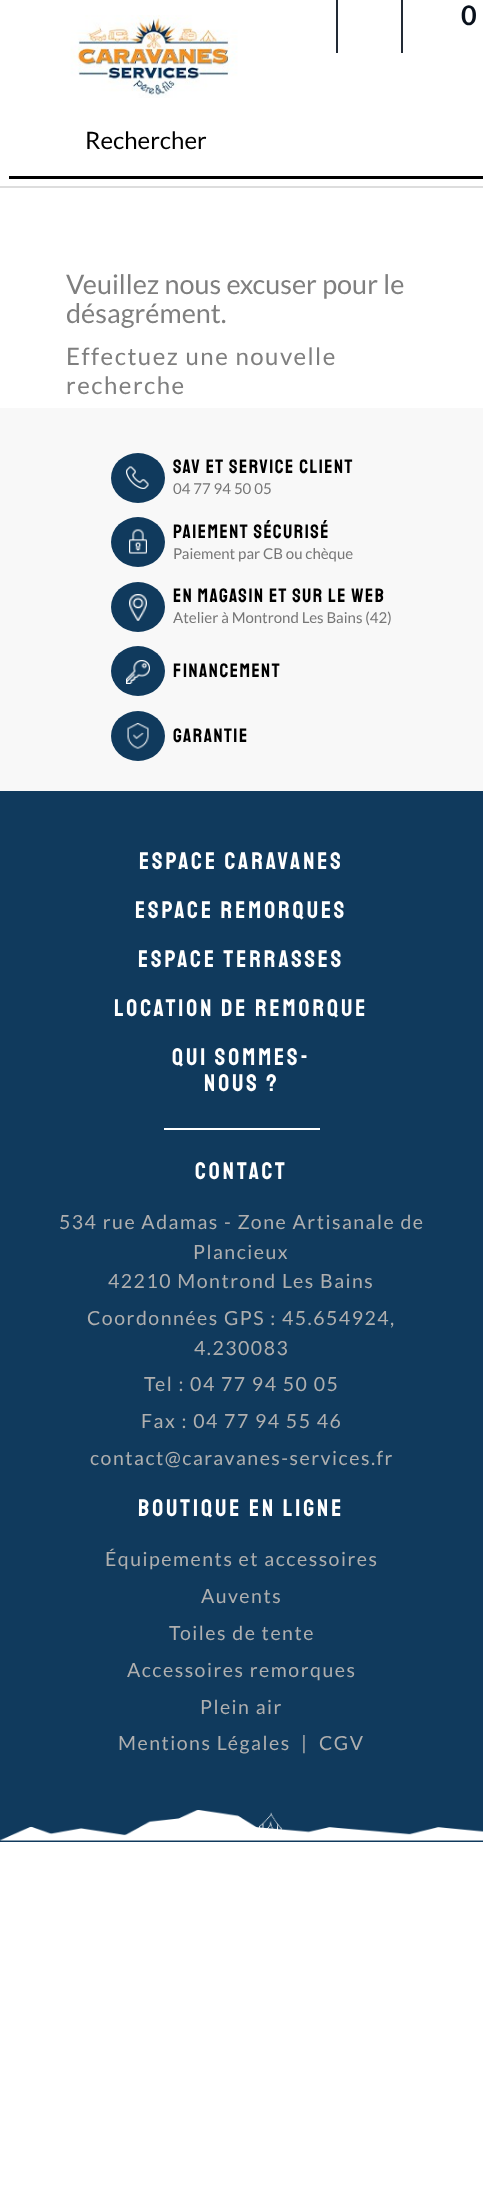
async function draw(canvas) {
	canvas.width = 483;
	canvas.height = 2196;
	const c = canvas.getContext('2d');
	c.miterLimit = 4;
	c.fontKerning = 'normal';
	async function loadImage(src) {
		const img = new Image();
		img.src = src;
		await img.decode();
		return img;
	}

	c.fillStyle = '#fff';
	c.fillRect(0, 0, 483, 2196);
	c.fillStyle = '#ddd';
	c.fillRect(0, 186, 483, 2);
	c.drawImage(await loadImage('img1.png'), 70, 15, 168, 83);
	c.fillStyle = '#222a35';
	c.fillRect(336, 0, 2, 53);
	c.fillRect(401, 0, 2, 53);
	c.font = 'bold 27px Lato';
	c.fillStyle = '#09111c';
	c.fillText('0', 461, 25);
	c.fillStyle = '#000';
	c.fillRect(9, 176, 474, 3);
	c.font = '24px Lato';
	c.fillText('Rechercher', 85, 149);
	c.font = '27px Lato';
	c.fillStyle = '#7f7f7f';
	c.fillText('Veuillez nous excuser pour le', 66, 294);
	c.fillText('désagrément.', 66, 323);
	c.letterSpacing = '1.5px';
	c.font = '24px Lato';
	c.fillText('Effectuez une nouvelle', 66, 365);
	c.fillText('recherche', 66, 394);
	c.fillStyle = '#103a5d';
	c.fillRect(0, 791, 483, 1051);
	c.drawImage(await loadImage('img2.png'), 0, 1810, 483, 31);
	c.fillStyle = '#f8f8f8';
	c.fillRect(0, 408, 483, 383);
	c.fillStyle = '#103a5d';
	c.beginPath();
	c.ellipse(138, 478, 27, 25, 0, 0, 2 * Math.PI);
	c.fill();
	c.drawImage(await loadImage('img3.png'), 126, 466, 23, 23);
	c.font = '19.5px Staatliches';
	c.fillStyle = '#000';
	c.fillText('SAV et Service Client', 173, 473);
	c.letterSpacing = '0px';
	c.font = '15px Lato';
	c.fillStyle = '#767676';
	c.fillText('04 77 94 50 05', 173, 494);
	c.fillStyle = '#103a5d';
	c.beginPath();
	c.ellipse(138, 542, 27, 25, 0, 0, 2 * Math.PI);
	c.fill();
	c.drawImage(await loadImage('img4.png'), 129, 529, 18, 25);
	c.letterSpacing = '1.5px';
	c.font = '19.5px Staatliches';
	c.fillStyle = '#000';
	c.fillText('Paiement sécurisé', 173, 538);
	c.letterSpacing = '0px';
	c.font = '15px Lato';
	c.fillStyle = '#767676';
	c.fillText('Paiement par CB ou chèque', 173, 559);
	c.fillStyle = '#103a5d';
	c.beginPath();
	c.ellipse(138, 607, 27, 25, 0, 0, 2 * Math.PI);
	c.fill();
	c.drawImage(await loadImage('img5.png'), 129, 594, 18, 27);
	c.letterSpacing = '1.5px';
	c.font = '19.5px Staatliches';
	c.fillStyle = '#000';
	c.fillText('En magasin et sur le Web', 173, 602);
	c.letterSpacing = '0px';
	c.font = '15px Lato';
	c.fillStyle = '#767676';
	c.fillText('Atelier à Montrond Les Bains (42)', 173, 623);
	c.fillStyle = '#103a5d';
	c.beginPath();
	c.ellipse(138, 671, 27, 25, 0, 0, 2 * Math.PI);
	c.fill();
	c.drawImage(await loadImage('img6.png'), 126, 660, 24, 24);
	c.letterSpacing = '1.5px';
	c.font = '19.5px Staatliches';
	c.fillStyle = '#000';
	c.fillText('Financement', 173, 677);
	c.fillStyle = '#103a5d';
	c.beginPath();
	c.ellipse(138, 736, 27, 25, 0, 0, 2 * Math.PI);
	c.fill();
	c.drawImage(await loadImage('img7.png'), 127, 723, 22, 26);
	c.fillStyle = '#000';
	c.fillText('Garantie', 173, 742);
	c.letterSpacing = '3px';
	c.font = '24px Staatliches';
	c.fillStyle = '#fff';
	for (const [text, x, y] of [
		['Espace caravanes', 139, 869],
		['Espace remorques', 135, 918],
		['Espace Terrasses', 138, 967],
		['Location de remorque', 114, 1016],
	]) {
		c.fillText(text, x, y);
	}
	c.fillRect(164, 1128, 156, 2);
	for (const [text, x, y] of [
		['Qui sommes-', 172, 1065],
		['nous ?', 204, 1091],
		['Contact', 195, 1179],
	]) {
		c.fillText(text, x, y);
	}
	c.letterSpacing = '1.5px';
	c.font = '19.5px Lato';
	c.fillStyle = '#afafaf';
	for (const [text, x, y] of [
		['534 rue Adamas - Zone Artisanale de', 59, 1229],
		['Plancieux', 193, 1259],
		['42210 Montrond Les Bains', 108, 1288],
		['Coordonnées GPS : 45.654924,', 87, 1325],
		['4.230083', 194, 1355],
		['Tel : 04 77 94 50 05', 144, 1391],
		['Fax : 04 77 94 55 46', 141, 1428],
		['contact@caravanes-services.fr', 90, 1465],
	]) {
		c.fillText(text, x, y);
	}
	c.letterSpacing = '3px';
	c.font = '24px Staatliches';
	c.fillStyle = '#fff';
	c.fillText('Boutique en ligne', 138, 1516);
	c.letterSpacing = '1.5px';
	c.font = '19.5px Lato';
	c.fillStyle = '#afafaf';
	for (const [text, x, y] of [
		['Équipements et accessoires', 105, 1566],
		['Auvents', 201, 1603],
		['Toiles de tente', 169, 1640],
		['Accessoires remorques', 127, 1677],
		['Plein air', 200, 1714],
		['Mentions Légales', 118, 1750],
		['|', 301, 1750],
		['CGV', 319, 1750],
	]) {
		c.fillText(text, x, y);
	}
}

draw(document.querySelector('canvas'));
